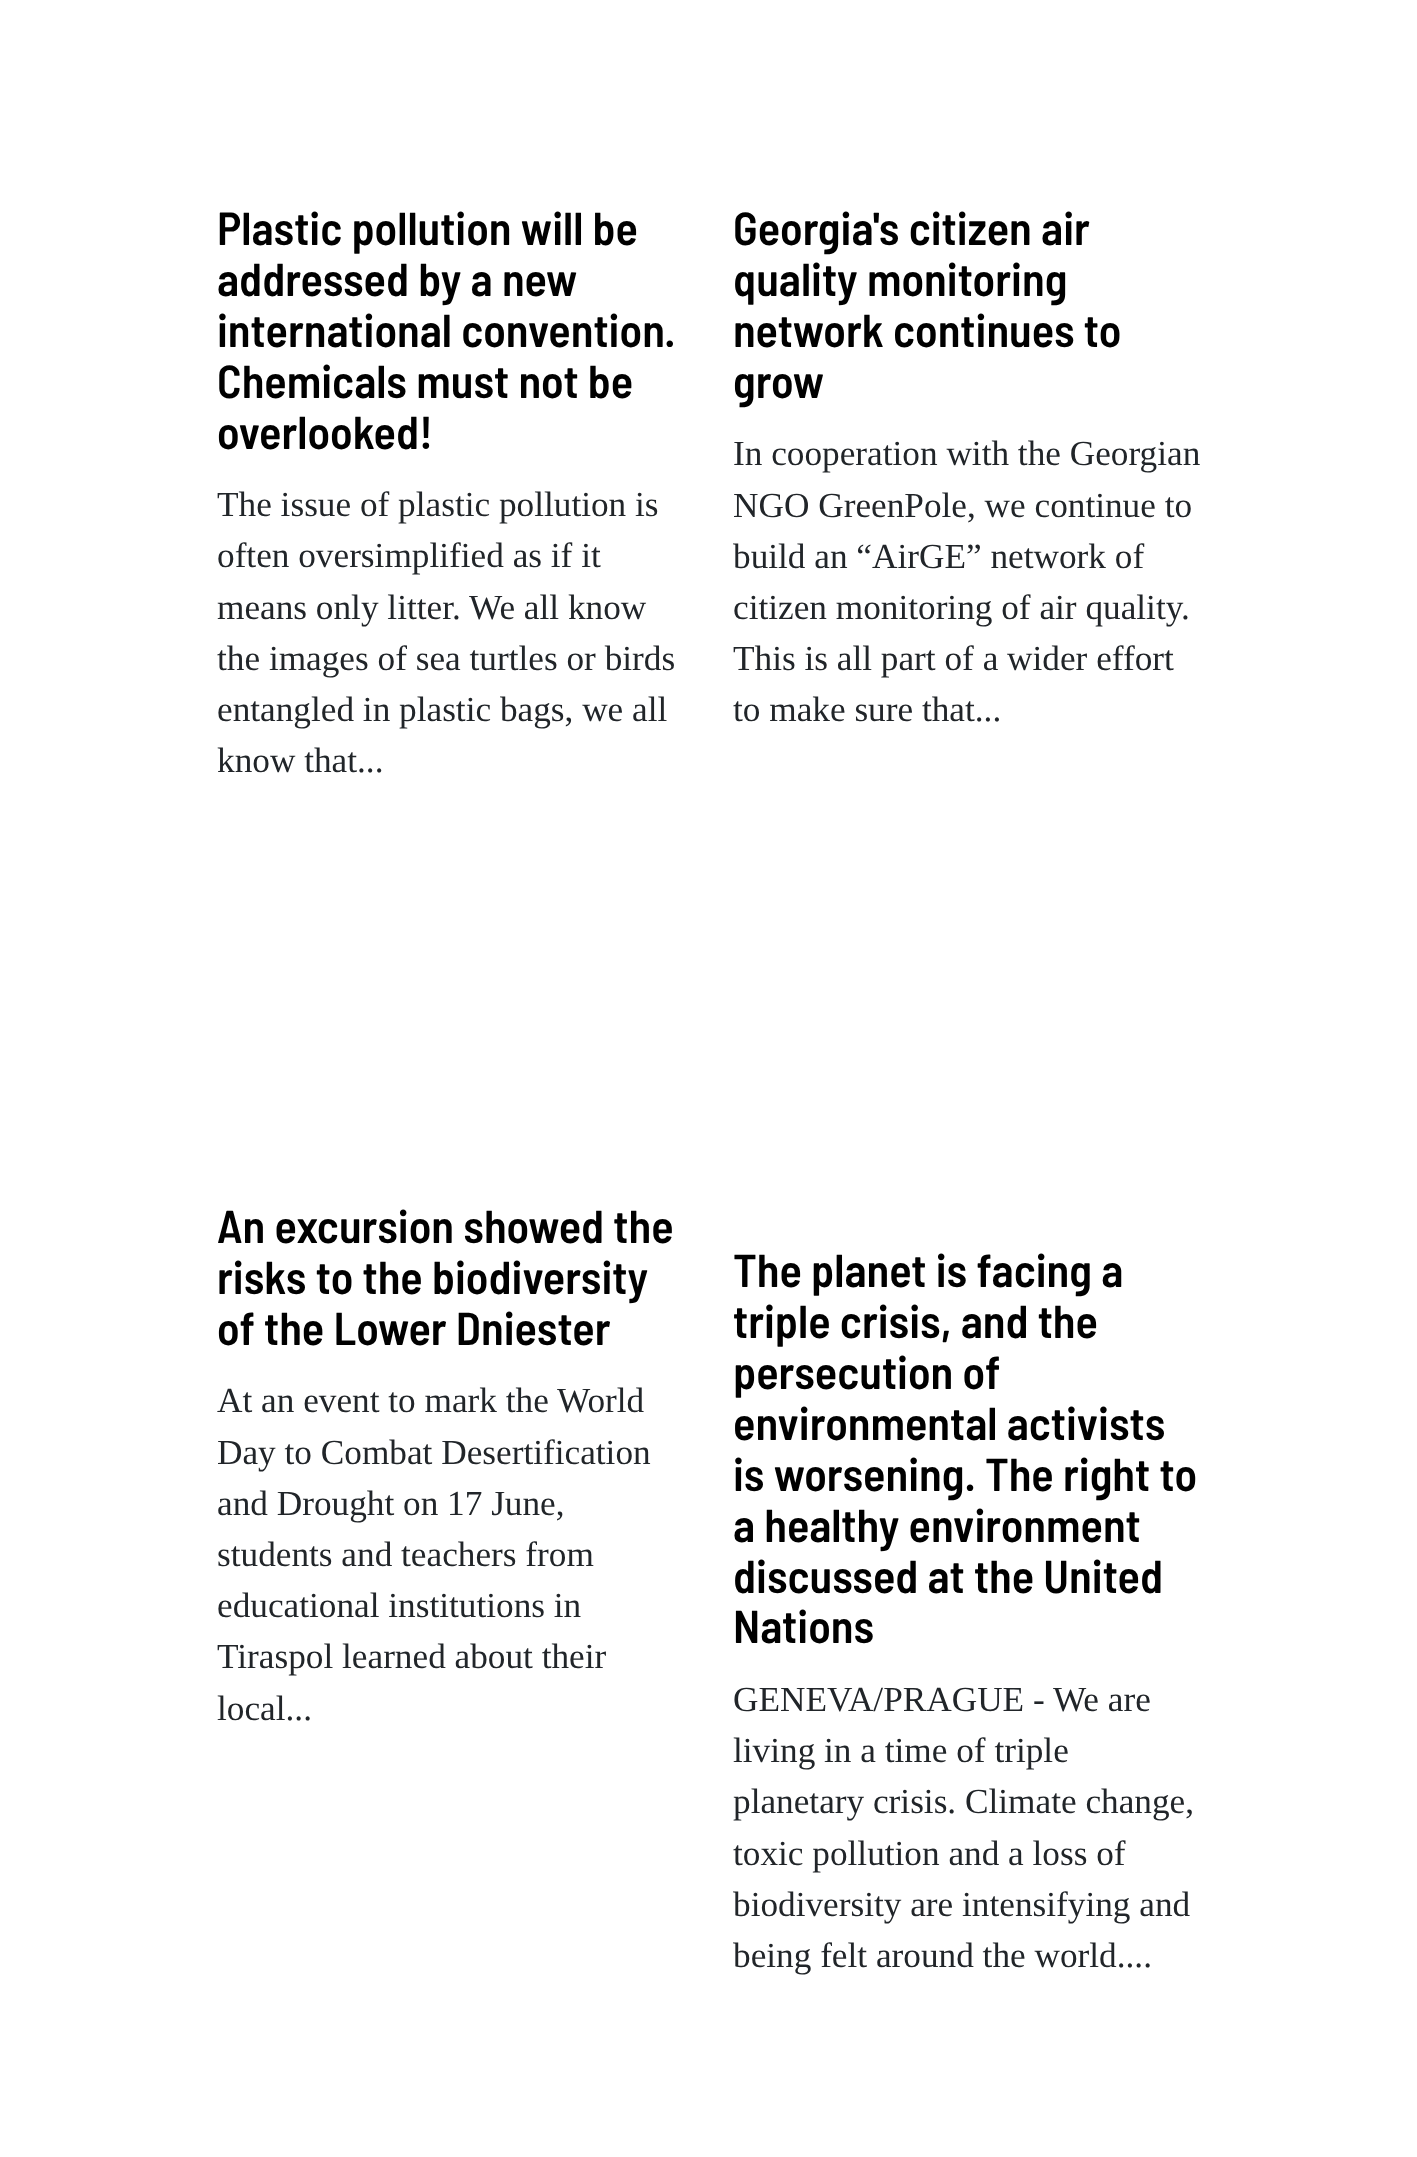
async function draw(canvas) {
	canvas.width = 1417;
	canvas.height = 2157;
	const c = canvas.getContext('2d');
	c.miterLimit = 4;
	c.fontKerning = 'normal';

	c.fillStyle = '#fff';
	c.fillRect(0, 0, 1417, 2157);
	c.font = '600 46.25px Barlow Semi Condensed';
	c.fillStyle = '#000';
	for (const [text, x, y] of [
		['Plastic pollution will be', 217, 245],
		['addressed by a new', 217, 296],
		['international convention.', 217, 347],
		['Chemicals must not be', 217, 398],
		['overlooked!', 217, 449],
	]) {
		c.fillText(text, x, y);
	}
	c.font = '35.25px Liberation Serif';
	c.fillStyle = '#212529';
	for (const [text, x, y] of [
		['The issue of plastic pollution is', 217, 516],
		['often oversimplified as if it', 217, 567],
		['means only litter. We all know', 217, 619],
		['the images of sea turtles or birds', 217, 670],
		['entangled in plastic bags, we all', 217, 721],
		['know that...', 217, 772],
	]) {
		c.fillText(text, x, y);
	}
	c.font = '600 46.25px Barlow Semi Condensed';
	c.fillStyle = '#000';
	for (const [text, x, y] of [
		['Georgia\'s citizen air', 733, 245],
		['quality monitoring', 733, 296],
		['network continues to', 733, 347],
		['grow', 733, 398],
	]) {
		c.fillText(text, x, y);
	}
	c.font = '35.25px Liberation Serif';
	c.fillStyle = '#212529';
	for (const [text, x, y] of [
		['In cooperation with the Georgian', 733, 465],
		['NGO GreenPole, we continue to', 733, 517],
		['build an “AirGE” network of', 733, 568],
		['citizen monitoring of air quality.', 733, 619],
		['This is all part of a wider effort', 733, 670],
		['to make sure that...', 733, 721],
	]) {
		c.fillText(text, x, y);
	}
	c.font = '600 46.25px Barlow Semi Condensed';
	c.fillStyle = '#000';
	for (const [text, x, y] of [
		['An excursion showed the', 217, 1243],
		['risks to the biodiversity', 217, 1294],
		['of the Lower Dniester', 217, 1345],
	]) {
		c.fillText(text, x, y);
	}
	c.font = '35.25px Liberation Serif';
	c.fillStyle = '#212529';
	for (const [text, x, y] of [
		['At an event to mark the World', 217, 1412],
		['Day to Combat Desertification', 217, 1464],
		['and Drought on 17 June,', 217, 1515],
		['students and teachers from', 217, 1566],
		['educational institutions in', 217, 1617],
		['Tiraspol learned about their', 217, 1668],
		['local...', 217, 1720],
	]) {
		c.fillText(text, x, y);
	}
	c.font = '600 46.25px Barlow Semi Condensed';
	c.fillStyle = '#000';
	for (const [text, x, y] of [
		['The planet is facing a', 733, 1287],
		['triple crisis, and the', 733, 1338],
		['persecution of', 733, 1389],
		['environmental activists', 733, 1440],
		['is worsening. The right to', 733, 1491],
		['a healthy environment', 733, 1542],
		['discussed at the United', 733, 1593],
		['Nations', 733, 1643],
	]) {
		c.fillText(text, x, y);
	}
	c.font = '35.25px Liberation Serif';
	c.fillStyle = '#212529';
	for (const [text, x, y] of [
		['GENEVA/PRAGUE - We are', 733, 1711],
		['living in a time of triple', 733, 1762],
		['planetary crisis. Climate change,', 733, 1813],
		['toxic pollution and a loss of', 733, 1865],
		['biodiversity are intensifying and', 733, 1916],
		['being felt around the world....', 733, 1967],
	]) {
		c.fillText(text, x, y);
	}
}

draw(document.querySelector('canvas'));
